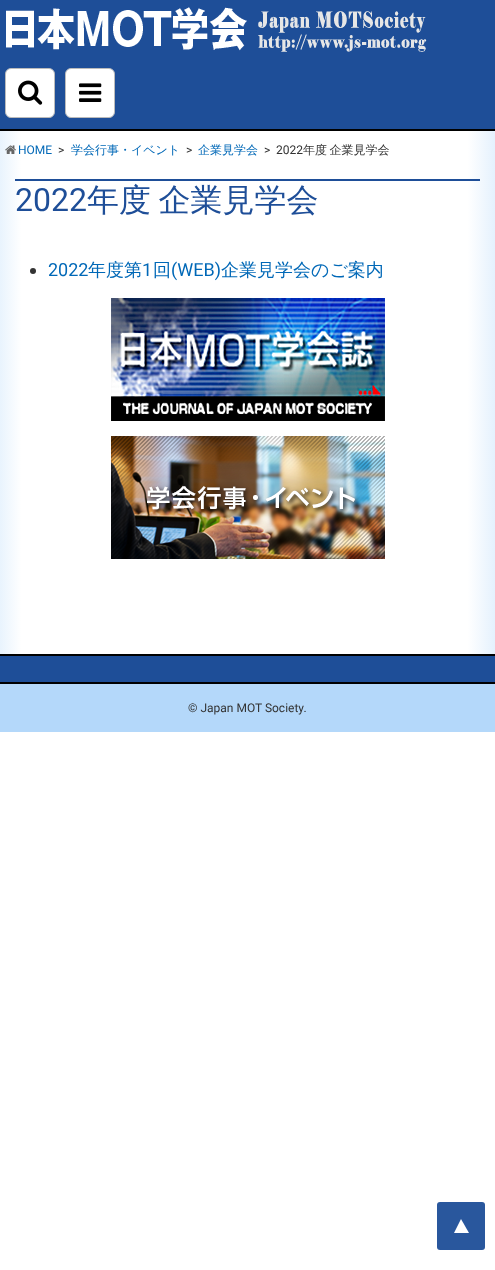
async function draw(canvas) {
	canvas.width = 495;
	canvas.height = 1270;
	const c = canvas.getContext('2d');
	c.miterLimit = 4;
	c.fontKerning = 'normal';
	async function loadImage(src) {
		const img = new Image();
		img.src = src;
		await img.decode();
		return img;
	}
	let gradient;

	c.fillStyle = '#fff';
	c.fillRect(0, 0, 495, 1270);
	c.fillStyle = '#1e4e98';
	c.fillRect(0, 0, 495, 129);
	c.fillStyle = '#000';
	c.fillRect(0, 129, 495, 2);
	c.drawImage(await loadImage('img1.png'), 6, 7, 421, 45);
	c.fillStyle = '#fff';
	c.beginPath();
	c.roundRect(5.5, 68.5, 49, 49, 5.5);
	c.fill();
	c.strokeStyle = '#bbb';
	c.stroke();
	c.drawImage(await loadImage('img2.png'), 18, 80, 25, 25);
	c.beginPath();
	c.roundRect(65.5, 68.5, 49, 49, 5.5);
	c.fill();
	c.stroke();
	c.drawImage(await loadImage('img3.png'), 79, 83, 23, 19);
	gradient = c.createLinearGradient(-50, 393, 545, 393);
	gradient.addColorStop(0, '#b4d8fa');
	gradient.addColorStop(0.12, '#fff');
	gradient.addColorStop(0.87, '#fff');
	gradient.addColorStop(1, '#b4d8fa');
	c.fillStyle = gradient;
	c.fillRect(0, 131, 495, 523);
	c.drawImage(await loadImage('img4.png'), 5, 145, 11, 9);
	c.font = '12px Roboto';
	c.fillStyle = '#0068b7';
	c.fillText('HOME', 18, 154);
	c.fillStyle = '#333';
	c.fillText('>', 58, 154);
	c.font = '500 12px WenQuanYi Zen Hei';
	c.fillStyle = '#0068b7';
	c.fillText('学会行事・イベント', 71, 154);
	c.font = '12px Roboto';
	c.fillStyle = '#333';
	c.fillText('>', 186, 154);
	c.font = '500 12px WenQuanYi Zen Hei';
	c.fillStyle = '#0068b7';
	c.fillText('企業見学会', 198, 154);
	c.font = '12px Roboto';
	c.fillStyle = '#333';
	c.fillText('>', 264, 154);
	c.fillText('2022', 276, 154);
	c.wordSpacing = '-1px';
	c.font = '500 12px WenQuanYi Zen Hei';
	c.fillText('年度 企業見学会', 303, 154);
	c.fillStyle = '#1e4e98';
	c.fillRect(15, 179, 465, 2);
	c.wordSpacing = '0px';
	c.font = '32px Roboto';
	c.fillText('2022', 15, 211);
	c.wordSpacing = '-2px';
	c.font = '500 32px WenQuanYi Zen Hei';
	c.fillText('年度 企業見学会', 87, 211);
	c.fillStyle = '#333';
	c.beginPath();
	c.arc(33, 271, 3, 0, 2 * Math.PI);
	c.fill();
	c.wordSpacing = '0px';
	c.font = '18px Roboto';
	c.fillStyle = '#0068b7';
	c.fillText('2022', 48, 276);
	c.font = '500 18px WenQuanYi Zen Hei';
	c.fillText('年度第', 88, 276);
	c.font = '18px Roboto';
	c.fillText('1', 142, 276);
	c.font = '500 18px WenQuanYi Zen Hei';
	c.fillText('回', 153, 276);
	c.font = '18px Roboto';
	c.fillText('(WEB)', 171, 276);
	c.font = '500 18px WenQuanYi Zen Hei';
	c.fillText('企業見学会のご案内', 221, 276);
	c.drawImage(await loadImage('img5.png'), 111, 298, 274, 123);
	c.drawImage(await loadImage('img6.png'), 111, 436, 274, 123);
	for (const [x, y, w, h, color] of [
		[0, 684, 495, 48, '#b4d8fa'],
		[0, 656, 495, 26, '#1e4e98'],
		[0, 654, 495, 2, '#000'],
		[0, 682, 495, 2, '#000'],
	]) {
		c.fillStyle = color;
		c.fillRect(x, y, w, h);
	}
	c.font = '12px Roboto';
	c.fillStyle = '#333';
	c.fillText('© Japan MOT Society.', 188, 712);
	c.fillStyle = '#29579d';
	c.beginPath();
	c.roundRect(437, 1202, 48, 48, 3);
	c.fill();
	c.save();
	c.beginPath();
	c.rect(453, 1219, 16, 14);
	c.clip();
	c.fillStyle = '#fff';
	c.beginPath();
	c.moveTo(461, 1219);
	c.lineTo(453, 1235);
	c.lineTo(469, 1233);
	c.closePath();
	c.fill();
	c.restore();
}

draw(document.querySelector('canvas'));
